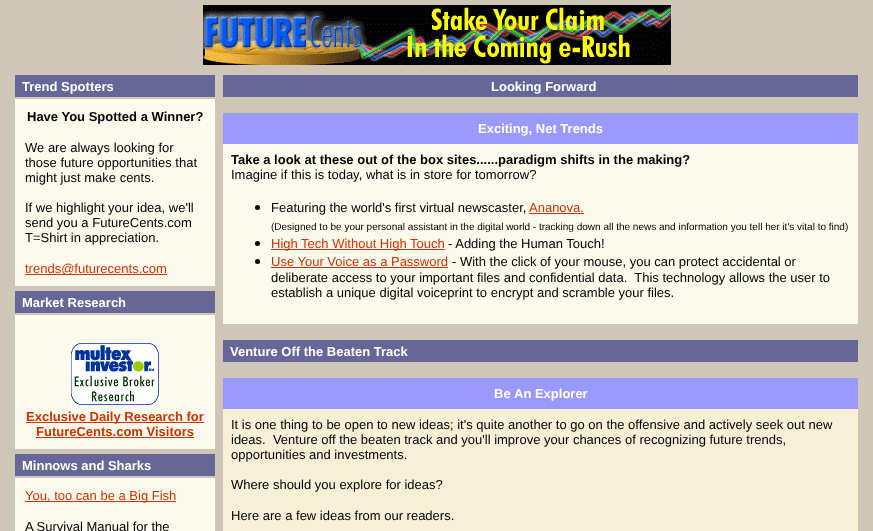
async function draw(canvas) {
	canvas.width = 873;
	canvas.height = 531;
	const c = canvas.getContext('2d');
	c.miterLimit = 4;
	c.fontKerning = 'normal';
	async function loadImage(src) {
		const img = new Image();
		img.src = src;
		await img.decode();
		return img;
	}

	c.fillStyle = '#cec6b6';
	c.fillRect(0, 0, 873, 531);
	c.drawImage(await loadImage('img1.png'), 203, 5, 468, 60);
	c.fillStyle = '#669';
	c.fillRect(15, 75, 200, 22);
	c.font = 'bold 13px Liberation Sans';
	c.fillStyle = '#fff';
	c.fillText('Trend Spotters', 22, 91);
	c.fillStyle = '#fcf9ed';
	c.fillRect(15, 99, 200, 187);
	c.fillStyle = '#000';
	c.fillText('Have You Spotted a Winner?', 27, 121);
	c.font = '13px Liberation Sans';
	for (const [text, x, y] of [
		['We are always looking for', 25, 152],
		['those future opportunities that', 25, 167],
		['might just make cents.', 25, 182],
		['If we highlight your idea, we\'ll', 25, 212],
		['send you a FutureCents.com', 25, 227],
		['T=Shirt in appreciation.', 25, 242],
	]) {
		c.fillText(text, x, y);
	}
	c.fillStyle = '#c30';
	c.fillRect(25, 274, 142, 1);
	c.fillText('trends@futurecents.com', 25, 273);
	c.fillStyle = '#669';
	c.fillRect(15, 291, 200, 22);
	c.font = 'bold 13px Liberation Sans';
	c.fillStyle = '#fff';
	c.fillText('Market Research', 22, 307);
	c.fillStyle = '#fcf9ed';
	c.fillRect(15, 315, 200, 134);
	c.drawImage(await loadImage('img2.png'), 71, 343, 88, 62);
	c.fillStyle = '#c30';
	c.fillRect(26, 422, 178, 1);
	c.fillText('Exclusive Daily Research for', 26, 421);
	c.fillText('FutureCents.com Visitors', 36, 436);
	c.fillRect(36, 437, 158, 1);
	c.fillStyle = '#669';
	c.fillRect(15, 454, 200, 22);
	c.fillStyle = '#fff';
	c.fillText('Minnows and Sharks', 22, 470);
	c.fillStyle = '#fcf9ed';
	c.fillRect(15, 478, 200, 53);
	c.fillStyle = '#c30';
	c.fillRect(25, 501, 151, 1);
	c.font = '13px Liberation Sans';
	c.fillText('You, too can be a Big Fish', 25, 500);
	c.fillStyle = '#000';
	c.fillText('A Survival Manual for the', 25, 531);
	c.fillStyle = '#669';
	c.fillRect(223, 75, 635, 22);
	c.font = 'bold 13px Liberation Sans';
	c.fillStyle = '#fff';
	c.fillText('Looking Forward', 491, 91);
	c.fillStyle = '#fcf9ed';
	c.fillRect(223, 144, 635, 180);
	c.fillStyle = '#99f';
	c.fillRect(223, 113, 635, 31);
	c.fillStyle = '#fff';
	c.fillText('Exciting, Net Trends', 478, 133);
	c.fillStyle = '#000';
	c.fillText('Take a look at these out of the box sites......paradigm shifts in the making?', 231, 164);
	c.font = '13px Liberation Sans';
	c.fillText('Imagine if this is today, what is in store for tomorrow?', 231, 179);
	c.beginPath();
	c.arc(257.5, 207.5, 2.5, 0, 2 * Math.PI);
	c.fill();
	c.fillText('Featuring the world\'s first virtual newscaster,', 271, 212);
	c.fillStyle = '#c30';
	c.fillText('Ananova.', 529, 212);
	c.fillRect(529, 213, 55, 1);
	c.font = '10px Liberation Sans';
	c.fillStyle = '#000';
	c.fillText('(Designed to be your personal assistant in the digital world - tracking down all the news and information you tell her it\'s vital to find)', 271, 230);
	c.beginPath();
	c.arc(257.5, 243.5, 2.5, 0, 2 * Math.PI);
	c.fill();
	c.fillStyle = '#c30';
	c.fillRect(271, 249, 174, 1);
	c.font = '13px Liberation Sans';
	c.fillText('High Tech Without High Touch', 271, 248);
	c.fillStyle = '#000';
	c.fillText('- Adding the Human Touch!', 448, 248);
	c.beginPath();
	c.arc(257.5, 261.5, 2.5, 0, 2 * Math.PI);
	c.fill();
	c.fillStyle = '#c30';
	c.fillText('Use Your Voice as a Password', 271, 266);
	c.fillRect(271, 267, 177, 1);
	c.fillStyle = '#000';
	for (const [text, x, y] of [
		['- With the click of your mouse, you can protect accidental or', 452, 266],
		['deliberate access to your important files and confidential data.  This technology allows the user to', 271, 282],
		['establish a unique digital voiceprint to encrypt and scramble your files.', 271, 297],
	]) {
		c.fillText(text, x, y);
	}
	c.fillStyle = '#669';
	c.fillRect(223, 340, 635, 22);
	c.font = 'bold 13px Liberation Sans';
	c.fillStyle = '#fff';
	c.fillText('Venture Off the Beaten Track', 230, 356);
	c.fillStyle = '#f7efd6';
	c.fillRect(223, 409, 635, 122);
	c.fillStyle = '#99f';
	c.fillRect(223, 378, 635, 31);
	c.fillStyle = '#fff';
	c.fillText('Be', 494, 398);
	c.fillText('An Explorer', 514, 398);
	c.font = '13px Liberation Sans';
	c.fillStyle = '#000';
	for (const [text, x, y] of [
		['It is one thing to be open to new ideas; it\'s quite another to go on the offensive and actively seek out new', 231, 429],
		['ideas.  Venture off the beaten track and you\'ll improve your chances of recognizing future trends,', 231, 444],
		['opportunities and investments.', 231, 459],
		['Where should you explore for ideas?', 231, 489],
		['Here are a few ideas from our readers.', 231, 520],
	]) {
		c.fillText(text, x, y);
	}
}

draw(document.querySelector('canvas'));
